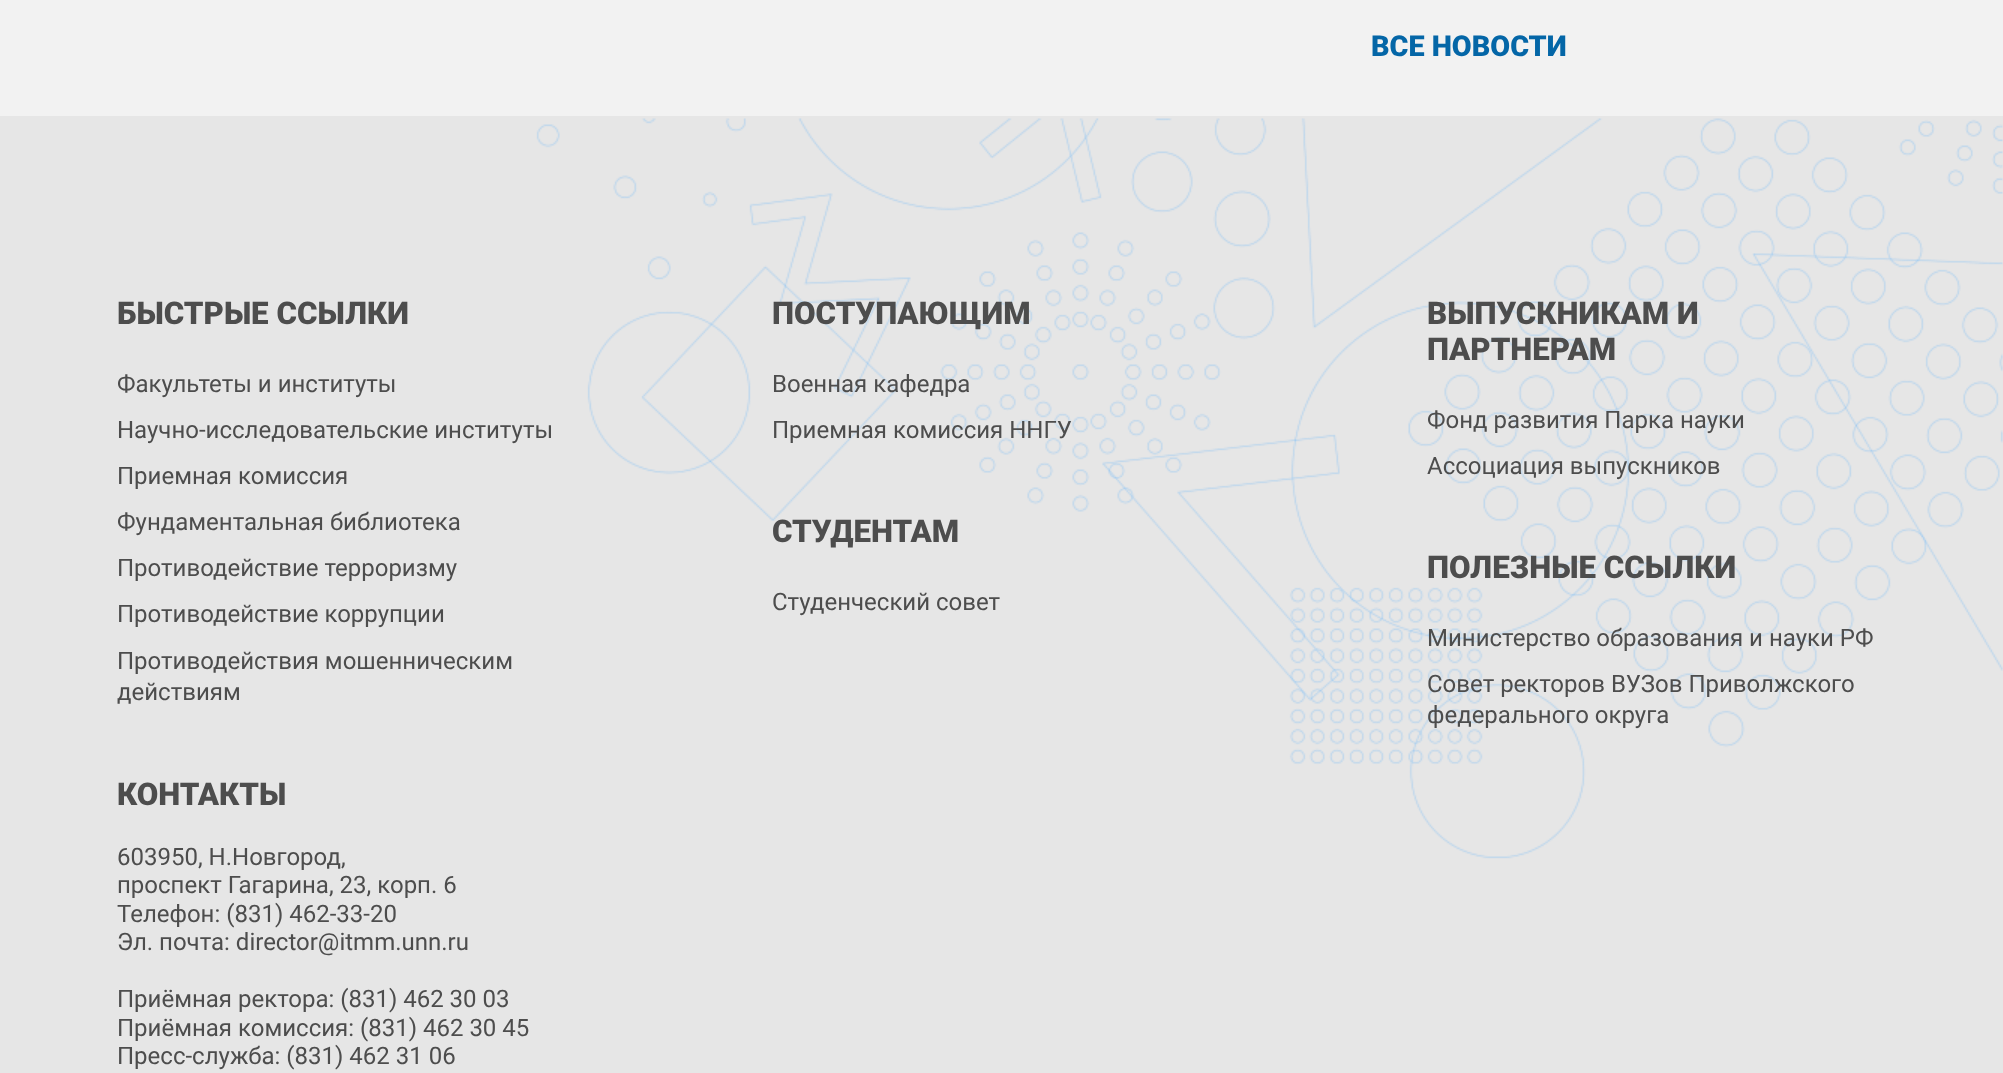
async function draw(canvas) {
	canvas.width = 2003;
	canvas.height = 1073;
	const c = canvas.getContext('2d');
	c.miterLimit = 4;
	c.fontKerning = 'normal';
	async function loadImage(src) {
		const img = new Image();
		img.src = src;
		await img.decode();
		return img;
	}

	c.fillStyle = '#f2f2f2';
	c.fillRect(0, 0, 2003, 1073);
	c.font = '900 28.75px Roboto';
	c.fillStyle = '#0466a7';
	c.fillText('ВСЕ НОВОСТИ', 1371, 56);
	c.fillStyle = '#e6e6e6';
	c.fillRect(0, 116, 2003, 957);
	c.drawImage(await loadImage('img1.png'), 536, 118, 1467, 741);
	c.font = '900 31.25px Roboto';
	c.fillStyle = '#4d4d4d';
	c.fillText('БЫСТРЫЕ ССЫЛКИ', 117, 324);
	c.font = '24px Roboto';
	for (const [text, x, y] of [
		['Факультеты и институты', 117, 392],
		['Научно-исследовательские институты', 117, 438],
		['Приемная комиссия', 117, 484],
		['Фундаментальная библиотека', 117, 530],
		['Противодействие терроризму', 117, 576],
		['Противодействие коррупции', 117, 622],
		['Противодействия мошенническим', 117, 669],
		['действиям', 117, 700],
	]) {
		c.fillText(text, x, y);
	}
	c.font = '900 31.25px Roboto';
	c.fillText('КОНТАКТЫ', 117, 805);
	c.font = '24px Roboto';
	for (const [text, x, y] of [
		['603950, Н.Новгород,', 117, 865],
		['проспект Гагарина, 23, корп. 6', 117, 893],
		['Телефон: (831) 462-33-20', 117, 922],
		['Эл. почта: director@itmm.unn.ru', 117, 950],
		['Приёмная ректора: (831) 462 30 03', 117, 1007],
		['Приёмная комиссия: (831) 462 30 45', 117, 1036],
		['Пресс-служба: (831) 462 31 06', 117, 1064],
	]) {
		c.fillText(text, x, y);
	}
	c.font = '900 31.25px Roboto';
	c.fillText('ПОСТУПАЮЩИМ', 772, 324);
	c.font = '24px Roboto';
	c.fillText('Военная кафедра', 772, 392);
	c.fillText('Приемная комиссия ННГУ', 772, 438);
	c.font = '900 31.25px Roboto';
	c.fillText('СТУДЕНТАМ', 772, 542);
	c.font = '24px Roboto';
	c.fillText('Студенческий совет', 772, 610);
	c.font = '900 31.25px Roboto';
	c.fillText('ВЫПУСКНИКАМ И', 1427, 324);
	c.fillText('ПАРТНЕРАМ', 1427, 360);
	c.font = '24px Roboto';
	c.fillText('Фонд развития Парка науки', 1427, 428);
	c.fillText('Ассоциация выпускников', 1427, 474);
	c.font = '900 31.25px Roboto';
	c.fillText('ПОЛЕЗНЫЕ ССЫЛКИ', 1427, 578);
	c.font = '24px Roboto';
	for (const [text, x, y] of [
		['Министерство образования и науки РФ', 1427, 646],
		['Совет ректоров ВУЗов Приволжского', 1427, 692],
		['федерального округа', 1427, 723],
	]) {
		c.fillText(text, x, y);
	}
}

draw(document.querySelector('canvas'));
